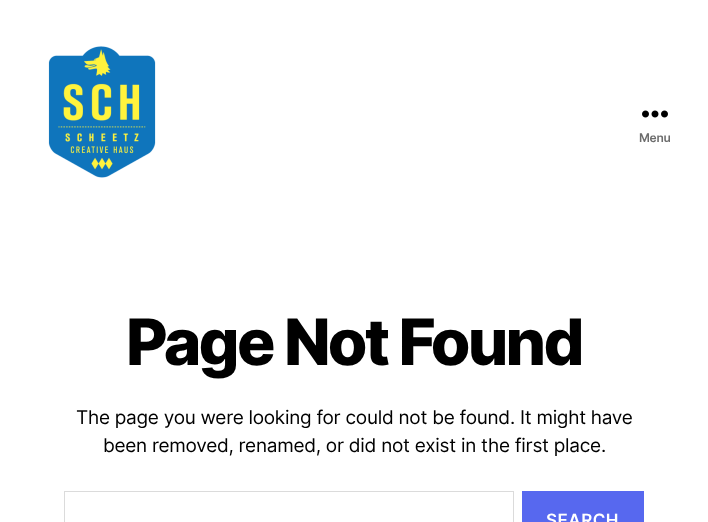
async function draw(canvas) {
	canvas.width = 708;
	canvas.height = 522;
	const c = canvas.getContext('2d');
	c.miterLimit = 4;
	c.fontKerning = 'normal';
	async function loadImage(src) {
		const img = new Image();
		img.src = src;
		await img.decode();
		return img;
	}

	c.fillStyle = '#fff';
	c.fillRect(0, 0, 708, 522);
	c.drawImage(await loadImage('img1.png'), 48, 46, 108, 132);
	c.drawImage(await loadImage('img2.png'), 642, 110, 26, 8);
	c.letterSpacing = '-0.27px';
	c.font = '600 12px Inter';
	c.fillStyle = '#6d6d6d';
	c.fillText('Menu', 639, 142);
	c.letterSpacing = '-2.7px';
	c.font = '800 64px Inter';
	c.fillStyle = '#000';
	c.fillText('Page Not Found', 126, 365);
	c.letterSpacing = '-0.27px';
	c.font = '19px Inter';
	c.fillText('The page you were looking for could not be found. It might have', 76, 424);
	c.fillText('been removed, renamed, or did not exist in the first place.', 103, 452);
	c.strokeStyle = '#dbdbdb';
	c.strokeRect(64.5, 491.5, 449, 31);
	c.fillStyle = '#5768ef';
	c.fillRect(522, 491, 122, 31);
	c.letterSpacing = '0.5px';
	c.font = '600 17px Inter';
	c.fillStyle = '#fff';
	c.fillText('SEARCH', 546, 526);
}

draw(document.querySelector('canvas'));
